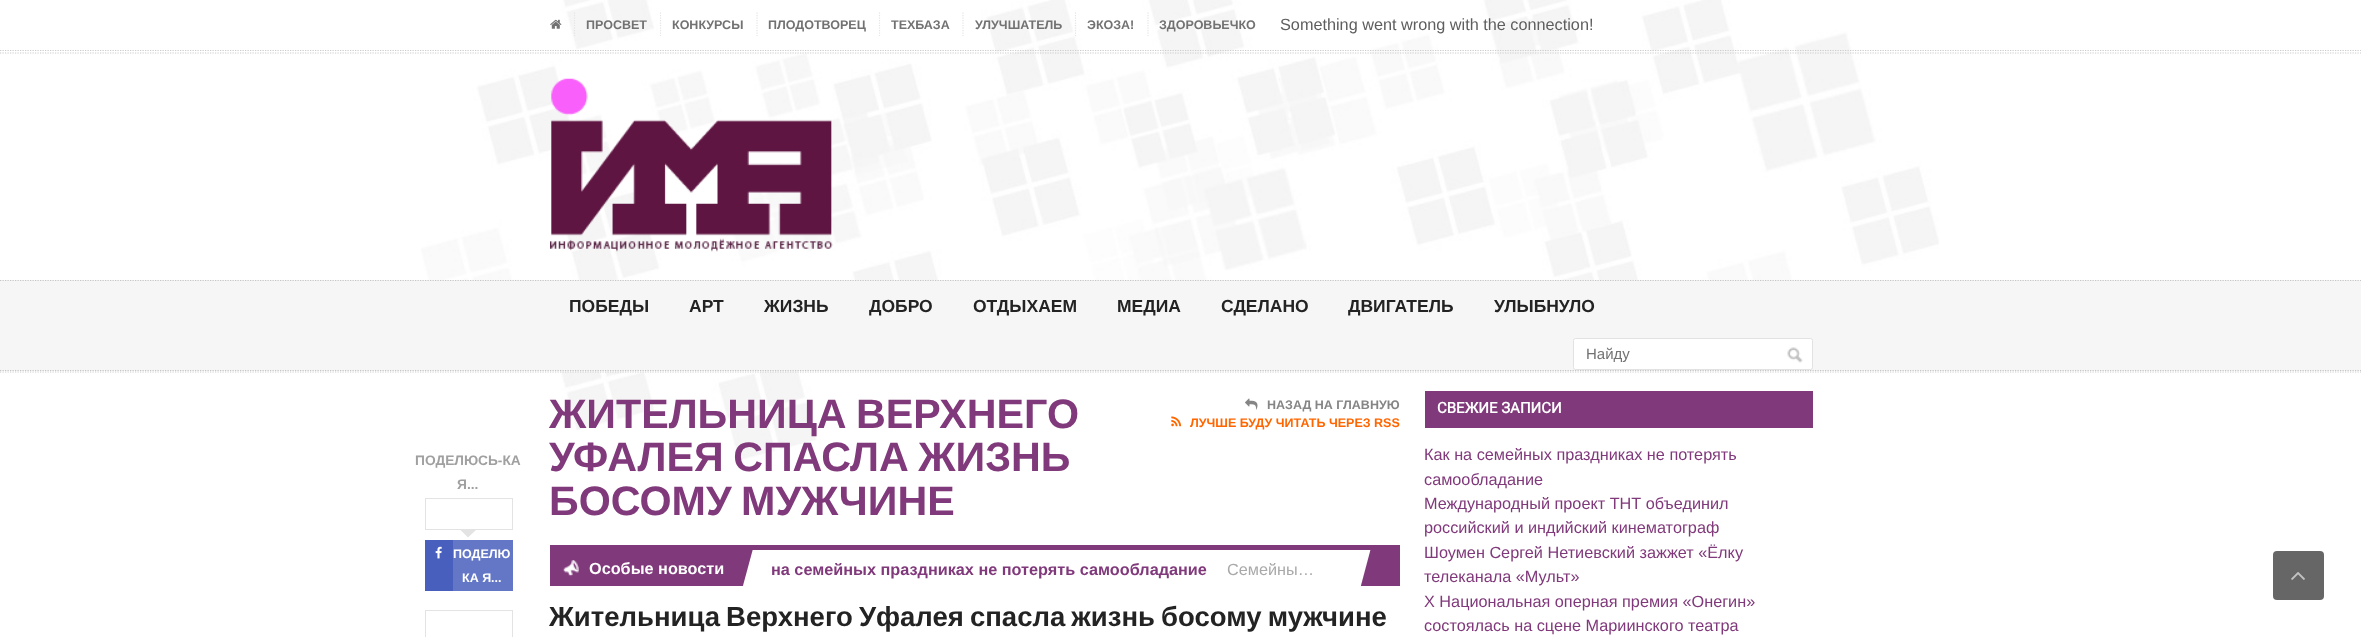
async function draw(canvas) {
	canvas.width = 2361;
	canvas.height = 637;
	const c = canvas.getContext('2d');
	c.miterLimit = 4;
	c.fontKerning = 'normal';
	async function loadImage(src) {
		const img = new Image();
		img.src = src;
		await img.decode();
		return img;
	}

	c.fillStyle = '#fff';
	c.fillRect(0, 0, 2361, 637);
	c.drawImage(await loadImage('img1.png'), 421, 0, 1518, 460);
	c.beginPath();
	c.moveTo(574.5, 12.5);
	c.lineTo(574.5, 36);
	c.strokeStyle = '#e5e5e5';
	c.lineWidth = 1.2;
	c.setLineDash([1.25, 1.25]);
	c.stroke();
	c.drawImage(await loadImage('img2.png'), 550, 19, 12, 10);
	c.beginPath();
	c.moveTo(660.5, 12.5);
	c.lineTo(660.5, 36);
	c.stroke();
	c.font = 'bold 12.5px Liberation Sans';
	c.fillStyle = '#727272';
	c.fillText('ПРОСВЕТ', 586, 29);
	c.beginPath();
	c.moveTo(757, 12.5);
	c.lineTo(757, 36);
	c.stroke();
	c.fillText('КОНКУРСЫ', 672, 29);
	c.beginPath();
	c.moveTo(879.5, 12.5);
	c.lineTo(879.5, 36);
	c.stroke();
	c.fillText('ПЛОДОТВОРЕЦ', 768, 29);
	c.beginPath();
	c.moveTo(963, 12.5);
	c.lineTo(963, 36);
	c.stroke();
	c.fillText('ТЕХБАЗА', 891, 29);
	c.beginPath();
	c.moveTo(1075.5, 12.5);
	c.lineTo(1075.5, 36);
	c.stroke();
	c.fillText('УЛУЧШАТЕЛЬ', 975, 29);
	c.beginPath();
	c.moveTo(1148, 12.5);
	c.lineTo(1148, 36);
	c.stroke();
	c.fillText('ЭКОЗА!', 1087, 29);
	c.fillText('ЗДОРОВЬЕЧКО', 1159, 29);
	c.font = '16.25px Liberation Sans';
	c.fillStyle = '#5e5e5e';
	c.fillText('Something went wrong with the connection!', 1280, 30);
	c.beginPath();
	c.moveTo(0, 50.5);
	c.lineTo(2361, 50.5);
	c.strokeStyle = '#ccc';
	c.stroke();
	c.beginPath();
	c.moveTo(0, 53);
	c.lineTo(2361, 53);
	c.stroke();
	c.drawImage(await loadImage('img3.png'), 550, 78, 283, 174);
	c.fillStyle = '#f6f6f6';
	c.fillRect(0, 280, 2361, 91);
	c.beginPath();
	c.moveTo(0, 280.5);
	c.lineTo(2361, 280.5);
	c.strokeStyle = '#c5c5c5';
	c.stroke();
	c.beginPath();
	c.moveTo(0, 370.5);
	c.lineTo(2361, 370.5);
	c.stroke();
	c.fillRect(550, 281, 119, 1);
	c.font = 'bold 17.5px Liberation Sans';
	c.fillStyle = '#232323';
	c.fillText('ПОБЕДЫ', 569, 312);
	c.fillStyle = '#f6f6f6';
	c.fillRect(670, 281, 74, 1);
	c.fillStyle = '#232323';
	c.fillText('АРТ', 689, 312);
	c.fillStyle = '#f6f6f6';
	c.fillRect(745, 281, 104, 1);
	c.fillStyle = '#232323';
	c.fillText('ЖИЗНЬ', 764, 312);
	c.fillStyle = '#f6f6f6';
	c.fillRect(850, 281, 101, 1);
	c.fillStyle = '#232323';
	c.fillText('ДОБРО', 869, 312);
	c.fillStyle = '#f6f6f6';
	c.fillRect(953, 281, 143, 1);
	c.fillStyle = '#232323';
	c.fillText('ОТДЫХАЕМ', 973, 312);
	c.fillStyle = '#f6f6f6';
	c.fillRect(1098, 281, 101, 1);
	c.fillStyle = '#232323';
	c.fillText('МЕДИА', 1117, 312);
	c.fillStyle = '#f6f6f6';
	c.fillRect(1200, 281, 129, 1);
	c.fillStyle = '#232323';
	c.fillText('СДЕЛАНО', 1221, 312);
	c.fillStyle = '#f6f6f6';
	c.fillRect(1330, 281, 144, 1);
	c.fillStyle = '#232323';
	c.fillText('ДВИГАТЕЛЬ', 1348, 312);
	c.fillStyle = '#f6f6f6';
	c.fillRect(1475, 281, 139, 1);
	c.fillStyle = '#232323';
	c.fillText('УЛЫБНУЛО', 1494, 312);
	c.fillStyle = '#fff';
	c.beginPath();
	c.roundRect(1573.5, 338.5, 239, 31, 2);
	c.fill();
	c.strokeStyle = '#e2e2e2';
	c.lineWidth = 1;
	c.setLineDash([]);
	c.stroke();
	c.font = '15px Liberation Sans';
	c.fillStyle = '#727272';
	c.fillText('Найду', 1586, 359);
	c.drawImage(await loadImage('img4.png'), 1787, 347, 16, 16);
	c.fillStyle = '#ffffff66';
	c.fillRect(561, 371, 240, 1);
	c.beginPath();
	c.moveTo(0, 372);
	c.lineTo(2361, 372);
	c.strokeStyle = '#ccc';
	c.lineWidth = 1.2;
	c.setLineDash([1.25, 1.25]);
	c.stroke();
	c.font = 'bold 13.75px Liberation Sans';
	c.fillStyle = '#a0a0a0';
	c.fillText('ПОДЕЛЮСЬ-КА', 415, 465);
	c.fillText('Я...', 457, 489);
	c.strokeStyle = '#e3e3e3';
	c.lineWidth = 1;
	c.setLineDash([]);
	c.strokeRect(425.5, 498.5, 87, 31);
	c.save();
	c.beginPath();
	c.rect(426, 529, 85, 12);
	c.clip();
	c.fillStyle = '#e3e3e3';
	c.beginPath();
	c.moveTo(468, 520);
	c.lineTo(477, 529);
	c.lineTo(468, 537.5);
	c.lineTo(459.5, 529);
	c.closePath();
	c.fill();
	c.restore();
	c.fillStyle = '#495fbd';
	c.fillRect(425, 540, 28, 51);
	c.drawImage(await loadImage('img5.png'), 435, 546, 7, 13);
	c.fillStyle = '#6477c7';
	c.fillRect(453, 540, 60, 51);
	c.font = 'bold 12.5px Liberation Sans';
	c.fillStyle = '#fff';
	c.fillText('ПОДЕЛЮ', 453, 558);
	c.fillText('КА Я...', 462, 582);
	c.strokeRect(425.5, 610.5, 87, 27);
	c.fillStyle = '#80397b';
	c.fillRect(550, 545, 850, 5);
	c.wordSpacing = '-2px';
	c.font = 'bold 41.25px Liberation Sans';
	for (const [text, x, y] of [
		['ЖИТЕЛЬНИЦА ВЕРХНЕГО', 549, 428],
		['УФАЛЕЯ СПАСЛА ЖИЗНЬ', 549, 471],
		['БОСОМУ МУЖЧИНЕ', 549, 515],
	]) {
		c.fillText(text, x, y);
	}
	c.drawImage(await loadImage('img6.png'), 1245, 398, 13, 12);
	c.wordSpacing = '0px';
	c.font = 'bold 12.5px Liberation Sans';
	c.fillStyle = '#858585';
	c.fillText('НАЗАД НА ГЛАВНУЮ', 1267, 409);
	c.drawImage(await loadImage('img7.png'), 1171, 416, 11, 11);
	c.fillStyle = '#f60';
	c.fillText('ЛУЧШЕ БУДУ ЧИТАТЬ ЧЕРЕЗ RSS', 1190, 427);
	c.fillStyle = '#80397b';
	c.fillRect(550, 550, 165, 36);
	c.drawImage(await loadImage('img8.png'), 563, 560, 16, 17);
	c.save();
	c.beginPath();
	c.rect(550, 550, 850, 36);
	c.clip();
	c.beginPath();
	c.moveTo(706, 532);
	c.lineTo(754, 545);
	c.lineTo(741, 593);
	c.lineTo(693, 580);
	c.closePath();
	c.fill();
	c.restore();
	c.font = 'bold 16.25px Liberation Sans';
	c.fillStyle = '#fff';
	c.fillText('Особые новости', 589, 574);
	c.fillStyle = '#80397b';
	c.fillText('на семейных праздниках не потерять самообладание', 771, 575);
	c.font = '16.25px Liberation Sans';
	c.fillStyle = '#a9a9a9';
	c.fillText('Семейны…', 1227, 575);
	c.fillStyle = '#80397b';
	c.fillRect(1394, 550, 6, 2);
	c.save();
	c.beginPath();
	c.rect(550, 550, 850, 36);
	c.clip();
	c.beginPath();
	c.moveTo(1372, 544);
	c.lineTo(1420, 557);
	c.lineTo(1407, 606);
	c.lineTo(1359, 593);
	c.closePath();
	c.fill();
	c.restore();
	c.wordSpacing = '-1.5px';
	c.font = 'bold 27.5px Liberation Sans';
	c.fillStyle = '#232323';
	c.fillText('Жительница Верхнего Уфалея спасла жизнь босому мужчине', 549, 626);
	c.fillStyle = '#80397b';
	c.fillRect(1425, 391, 388, 37);
	c.wordSpacing = '0px';
	c.font = 'bold 15px Roboto';
	c.fillStyle = '#fff';
	c.fillText('СВЕЖИЕ ЗАПИСИ', 1437, 413);
	c.font = '16.25px Liberation Sans';
	c.fillStyle = '#80397b';
	for (const [text, x, y] of [
		['Как на семейных праздниках не потерять', 1424, 460],
		['самообладание', 1424, 485],
		['Международный проект ТНТ объединил', 1424, 509],
		['российский и индийский кинематограф', 1424, 533],
		['Шоумен Сергей Нетиевский зажжет «Ёлку', 1424, 558],
		['телеканала «Мульт»', 1424, 582],
		['X Национальная оперная премия «Онегин»', 1424, 607],
		['состоялась на сцене Мариинского театра', 1424, 631],
	]) {
		c.fillText(text, x, y);
	}
	c.fillStyle = '#666';
	c.beginPath();
	c.roundRect(2273, 551, 51, 49, 4);
	c.fill();
	c.drawImage(await loadImage('img9.png'), 2291, 572, 14, 8);
}

draw(document.querySelector('canvas'));
